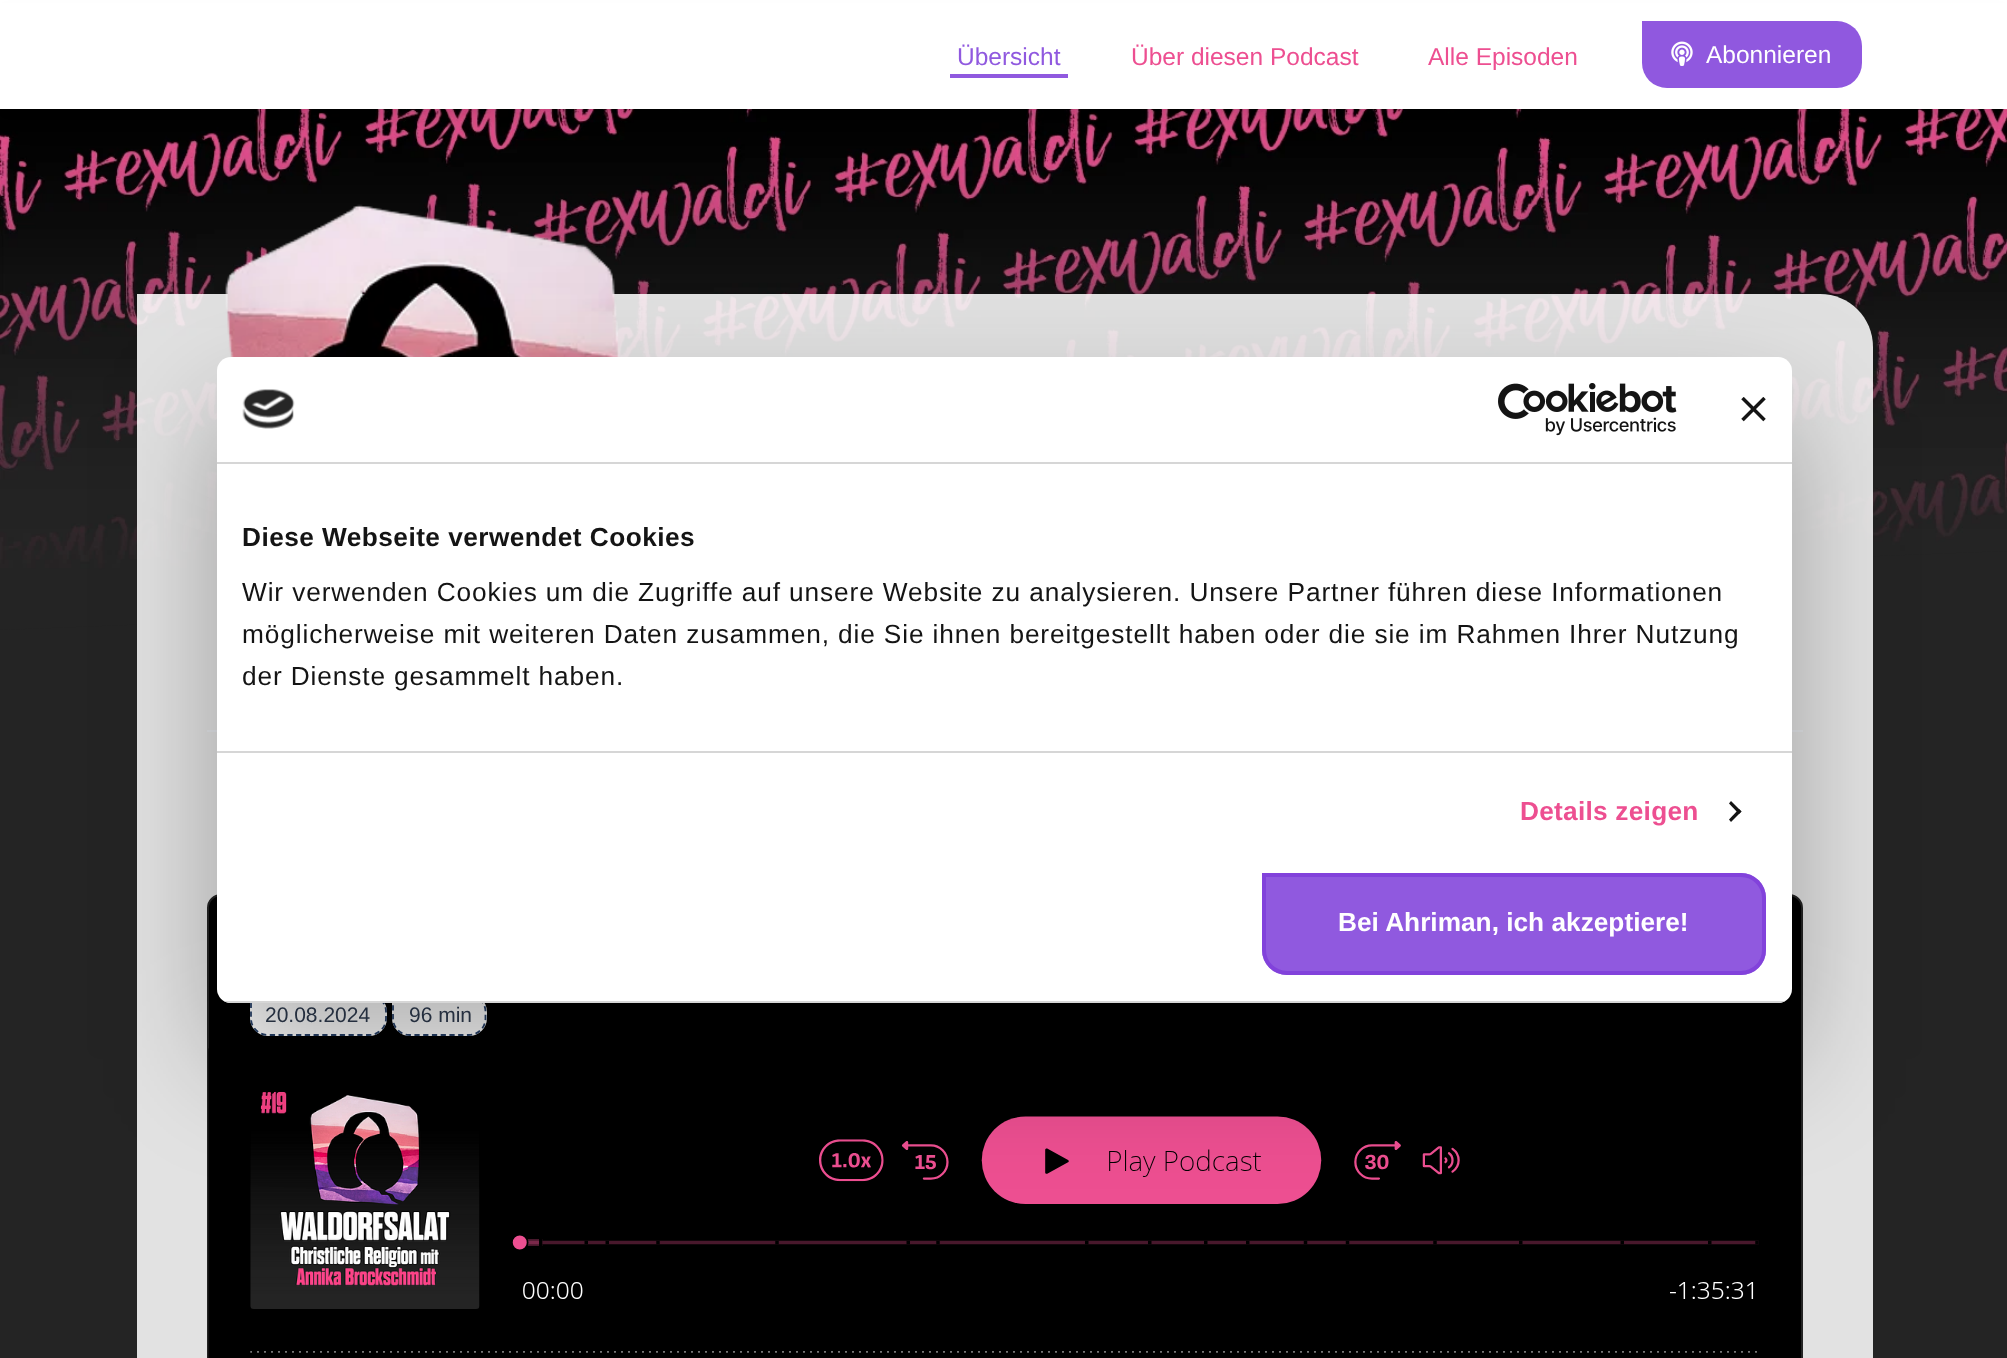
async function draw(canvas) {
	canvas.width = 2007;
	canvas.height = 1358;
	const c = canvas.getContext('2d');
	c.miterLimit = 4;
	c.fontKerning = 'normal';
	async function loadImage(src) {
		const img = new Image();
		img.src = src;
		await img.decode();
		return img;
	}

	c.fillStyle = '#fff';
	c.fillRect(0, 0, 2007, 1358);
	c.drawImage(await loadImage('img5.png'), 0, 109, 2007, 521);
	c.fillStyle = '#0000000d';
	c.filter = 'blur(5px)';
	c.beginPath();
	c.rect(4, 11, 2000, 101);
	c.fill();
	c.filter = 'none';
	c.fillStyle = '#0000001a';
	c.filter = 'blur(13px)';
	c.beginPath();
	c.rect(5, 23, 1997, 98);
	c.fill();
	c.filter = 'none';
	c.fillStyle = '#fff';
	c.fillRect(0, 3, 2007, 106);
	c.fillStyle = '#9059df';
	c.fillRect(950, 74, 118, 4);
	c.font = '24.5px Liberation Sans';
	c.fillText('Übersicht', 957, 65);
	c.fillStyle = '#ed4f91';
	c.fillText('Über diesen Podcast', 1131, 65);
	c.fillText('Alle Episoden', 1428, 65);
	c.fillStyle = '#7f3fdade';
	c.beginPath();
	c.roundRect(1642, 21, 220, 67, [0, 25, 25, 25]);
	c.fill();
	c.drawImage(await loadImage('img1.png'), 1671, 41, 22, 25);
	c.fillStyle = '#fff';
	c.fillText('Abonnieren', 1706, 63);
	c.fillStyle = '#242424';
	c.beginPath();
	c.moveTo(2007, 551);
	c.lineTo(2007, 630);
	c.lineTo(0, 630);
	c.closePath();
	c.fill();
	c.fillRect(0, 630, 2007, 728);
	c.fillStyle = '#ffffffde';
	c.beginPath();
	c.moveTo(137, 294);
	c.lineTo(1820, 294);
	c.bezierCurveTo(1849.5, 294, 1873, 317.5, 1873, 347);
	c.lineTo(1873, 1358);
	c.bezierCurveTo(1873, 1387.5, 1849.5, 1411, 1820, 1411);
	c.lineTo(190, 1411);
	c.bezierCurveTo(160.5, 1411, 137, 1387.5, 137, 1358);
	c.closePath();
	c.fill();
	c.drawImage(await loadImage('img6.png'), 225, 204, 395, 154);
	c.fillStyle = '#e5e7eb';
	c.fillRect(207, 730, 1596, 2);
	c.fillStyle = '#000';
	c.beginPath();
	c.roundRect(208, 895, 1594, 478, 13);
	c.fill();
	c.strokeStyle = '#242424';
	c.lineWidth = 2;
	c.stroke();
	c.fillStyle = '#fff';
	c.beginPath();
	c.roundRect(250, 994, 137, 42, [0, 18, 18, 18]);
	c.fill();
	c.beginPath();
	c.moveTo(251, 995);
	c.lineTo(369, 995);
	c.bezierCurveTo(378.5, 995, 386, 1002.5, 386, 1011.5);
	c.lineTo(386, 1018.5);
	c.bezierCurveTo(386, 1027.5, 378.5, 1035, 369, 1035);
	c.lineTo(268, 1035);
	c.bezierCurveTo(258.5, 1035, 251, 1027.5, 251, 1018.5);
	c.closePath();
	c.strokeStyle = '#274169';
	c.lineWidth = 1.8;
	c.setLineDash([5.25, 3.5]);
	c.stroke();
	c.beginPath();
	c.roundRect(392, 994, 95, 42, [0, 18, 18, 18]);
	c.fill();
	c.beginPath();
	c.moveTo(393, 995);
	c.lineTo(469, 995);
	c.bezierCurveTo(478, 995, 485.5, 1002.5, 485.5, 1011.5);
	c.lineTo(485.5, 1018.5);
	c.bezierCurveTo(485.5, 1027.5, 478, 1035, 469, 1035);
	c.lineTo(409.5, 1035);
	c.bezierCurveTo(400.5, 1035, 393, 1027.5, 393, 1018.5);
	c.closePath();
	c.stroke();
	c.drawImage(await loadImage('img7.png'), 208, 1048, 1551, 310);
	c.fillStyle = '#0000004d';
	c.filter = 'blur(59.5px)';
	c.beginPath();
	c.roundRect(217, 413, 1575, 646, 14);
	c.fill();
	c.filter = 'none';
	c.fillStyle = '#fff';
	c.beginPath();
	c.roundRect(217, 357, 1575, 646, 14);
	c.fill();
	c.fillStyle = '#d6d6d6';
	c.fillRect(217, 462, 1575, 2);
	c.drawImage(await loadImage('img2.png'), 242, 389, 53, 40);
	c.drawImage(await loadImage('img3.png'), 1498, 383, 179, 53);
	c.drawImage(await loadImage('img4.png'), 1741, 397, 25, 25);
	c.fillRect(217, 751, 1575, 2);
	c.letterSpacing = '0.45px';
	c.font = 'bold 26.25px Liberation Sans';
	c.fillStyle = '#141414';
	c.fillText('Diese Webseite verwendet Cookies', 242, 546);
	c.letterSpacing = '0.88px';
	c.font = '26.25px Liberation Sans';
	for (const [text, x, y] of [
		['Wir verwenden Cookies um die Zugriffe auf unsere Website zu analysieren. Unsere Partner führen diese Informationen', 242, 601],
		['möglicherweise mit weiteren Daten zusammen, die Sie ihnen bereitgestellt haben oder die sie im Rahmen Ihrer Nutzung', 242, 643],
		['der Dienste gesammelt haben.', 242, 685],
	]) {
		c.fillText(text, x, y);
	}
	c.letterSpacing = '0.25px';
	c.font = 'bold 26.25px Liberation Sans';
	c.fillStyle = '#ed4f91';
	c.fillText('Details zeigen', 1520, 820);
	c.fillStyle = '#141414';
	c.beginPath();
	c.moveTo(1731, 801);
	c.lineTo(1741.5, 811.5);
	c.lineTo(1739, 814);
	c.lineTo(1729, 803.5);
	c.closePath();
	c.fill();
	c.beginPath();
	c.moveTo(1739, 809);
	c.lineTo(1741.5, 811.5);
	c.lineTo(1731, 822);
	c.lineTo(1729, 819.5);
	c.closePath();
	c.fill();
	c.save();
	c.beginPath();
	c.roundRect(217, 357, 1575, 646, 14);
	c.clip();
	c.fillStyle = '#d6d6d6';
	c.fillRect(217, 1001, 1575, 2);
	c.restore();
	c.fillStyle = '#9059df';
	c.beginPath();
	c.roundRect(1262, 873, 504, 102, [0, 25, 25, 25]);
	c.fill();
	c.beginPath();
	c.roundRect(1264, 875, 500, 98, [0, 23, 23, 23]);
	c.strokeStyle = '#7f3fdade';
	c.lineWidth = 4;
	c.setLineDash([]);
	c.stroke();
	c.letterSpacing = '0px';
	c.fillStyle = '#fff';
	c.fillText('Bei Ahriman, ich akzeptiere!', 1338, 931);
	c.font = '21px Liberation Sans';
	c.fillStyle = '#252f3f';
	c.fillText('20.08.2024', 265, 1022);
	c.fillText('96 min', 409, 1022);
}

draw(document.querySelector('canvas'));
